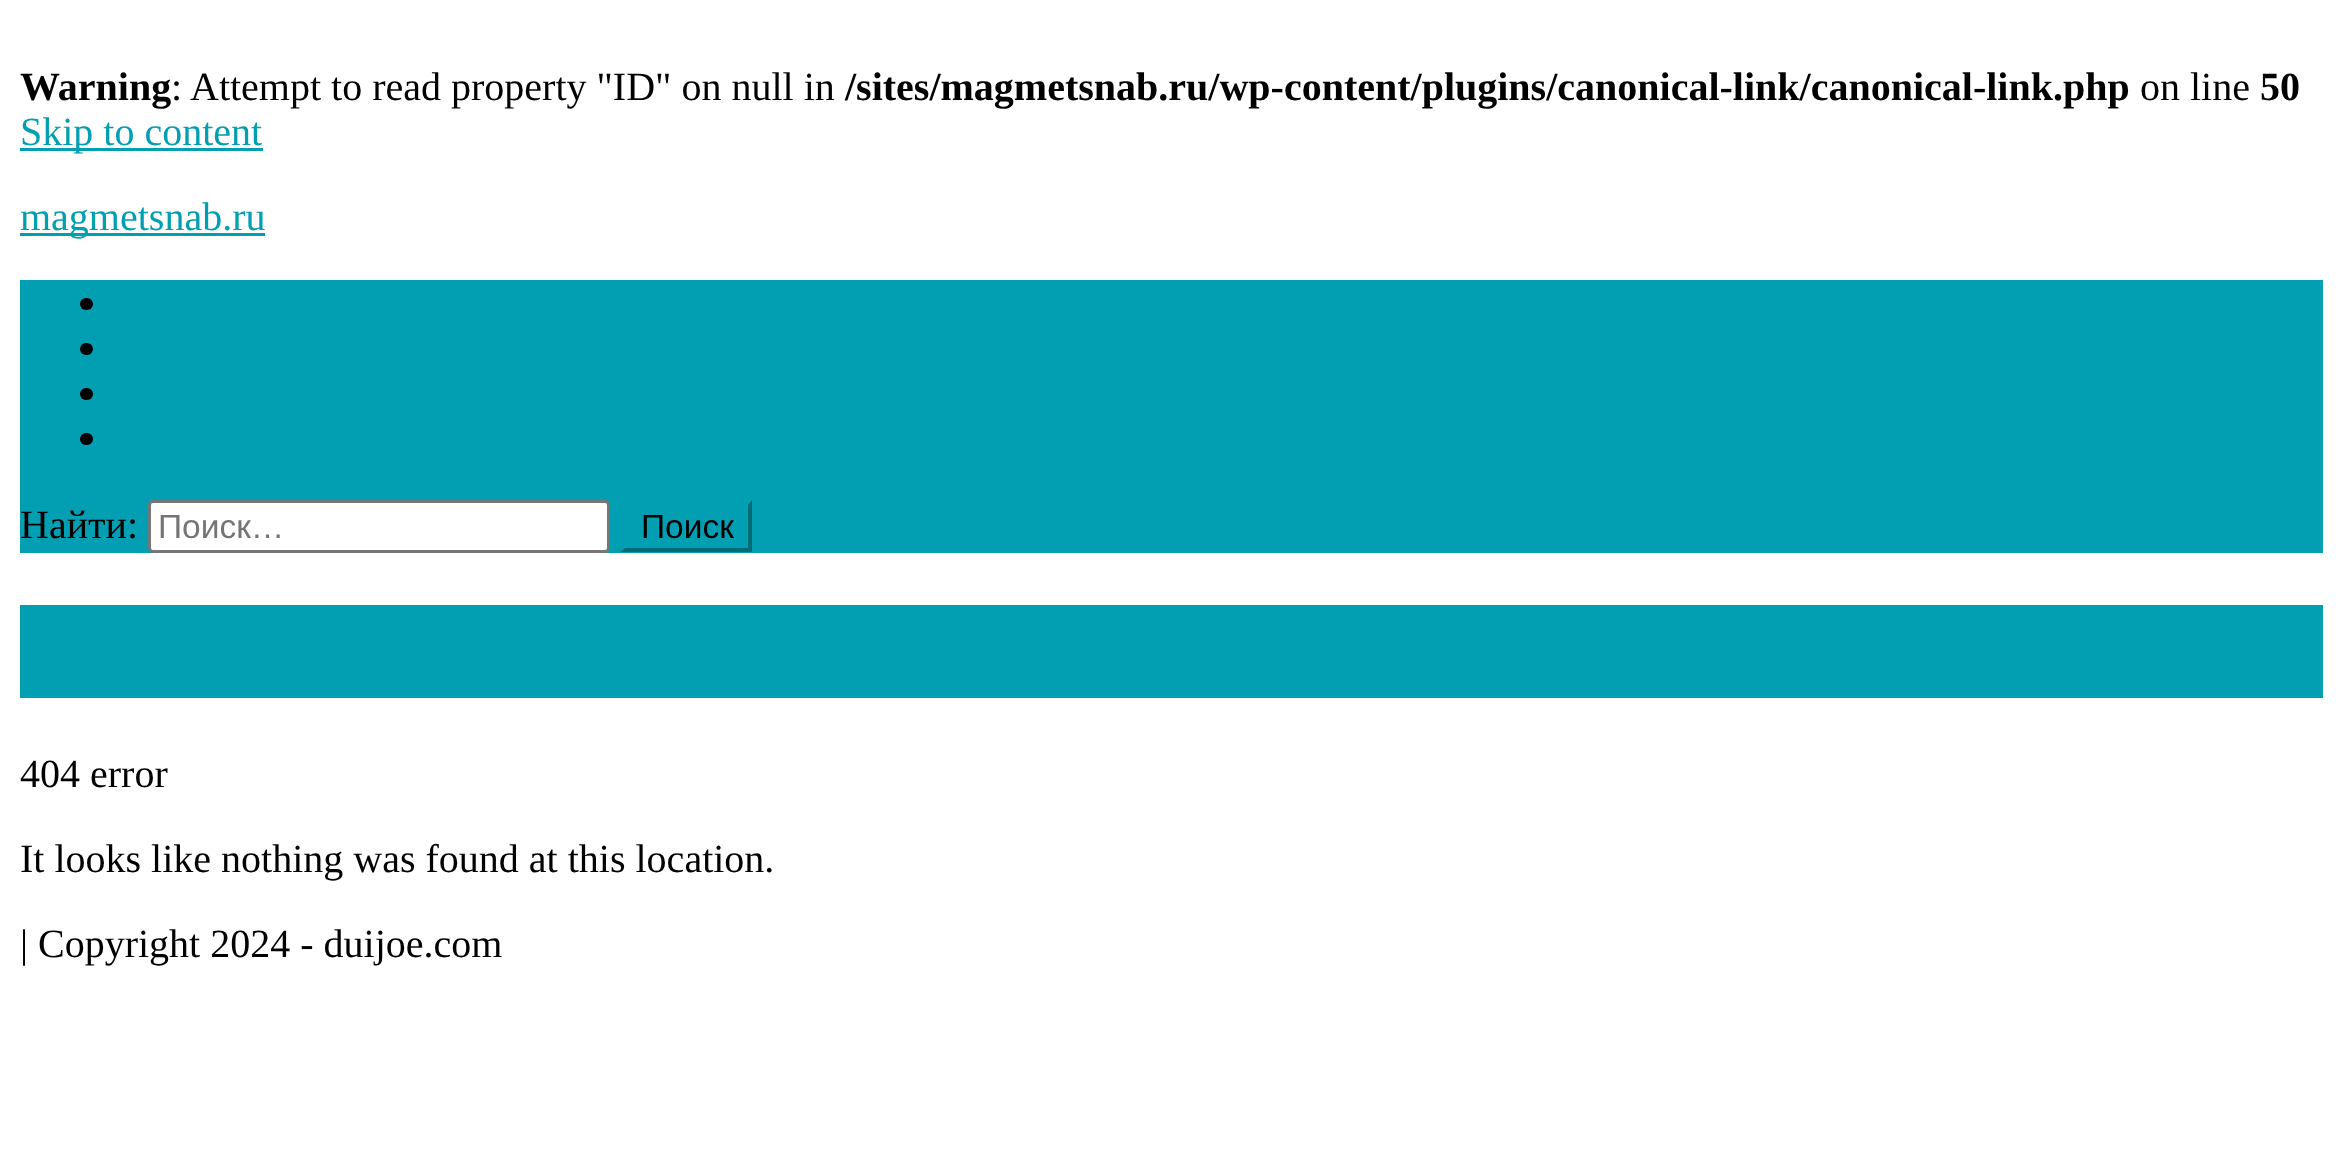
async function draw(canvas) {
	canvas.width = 2342;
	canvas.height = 1149;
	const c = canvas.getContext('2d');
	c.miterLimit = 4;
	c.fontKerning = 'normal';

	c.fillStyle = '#fff';
	c.fillRect(0, 0, 2342, 1149);
	c.font = 'bold 40px Liberation Serif';
	c.fillStyle = '#000';
	c.fillText('Warning', 20, 100);
	c.font = '40px Liberation Serif';
	c.fillText(':', 171, 100);
	c.fillText('Attempt to read property "ID" on null in', 190, 100);
	c.font = 'bold 40px Liberation Serif';
	c.fillText('/sites/magmetsnab.ru/wp-content/plugins/canonical-link/canonical-link.php', 845, 100);
	c.font = '40px Liberation Serif';
	c.fillText('on line', 2140, 100);
	c.font = 'bold 40px Liberation Serif';
	c.fillText('50', 2260, 100);
	c.fillStyle = '#029fb2';
	c.fillRect(20, 148, 243, 3);
	c.font = '40px Liberation Serif';
	c.fillText('Skip to content', 20, 145);
	c.fillRect(20, 233, 245, 3);
	c.fillText('magmetsnab.ru', 20, 230);
	c.fillRect(20, 280, 2303, 273);
	c.fillStyle = '#000';
	c.beginPath();
	c.roundRect(80, 298, 13, 12, 6);
	c.fill();
	c.beginPath();
	c.roundRect(80, 343, 13, 12, 6);
	c.fill();
	c.beginPath();
	c.roundRect(80, 388, 13, 12, 6);
	c.fill();
	c.beginPath();
	c.roundRect(80, 433, 13, 12, 6);
	c.fill();
	c.fillText('Найти:', 20, 538);
	c.fillStyle = '#fff';
	c.beginPath();
	c.roundRect(149.5, 501.5, 459, 50, 3.5);
	c.fill();
	c.strokeStyle = '#767676';
	c.lineWidth = 3;
	c.stroke();
	c.font = '33.5px Liberation Sans';
	c.fillStyle = '#757575';
	c.fillText('Поиск…', 158, 538);
	c.fillStyle = '#016a77';
	c.beginPath();
	c.moveTo(752, 500);
	c.lineTo(752, 552);
	c.lineTo(748, 548);
	c.lineTo(748, 505);
	c.closePath();
	c.fill();
	c.beginPath();
	c.moveTo(752, 552);
	c.lineTo(620, 552);
	c.lineTo(625, 548);
	c.lineTo(748, 548);
	c.closePath();
	c.fill();
	c.fillStyle = '#029fb2';
	c.beginPath();
	c.moveTo(620, 552);
	c.lineTo(620, 500);
	c.lineTo(625, 505);
	c.lineTo(625, 548);
	c.closePath();
	c.fill();
	c.fillStyle = '#000';
	c.fillText('Поиск', 641, 538);
	c.fillStyle = '#029fb2';
	c.fillRect(20, 605, 2303, 93);
	c.font = '40px Liberation Serif';
	c.fillStyle = '#000';
	for (const [text, x, y] of [
		['404 error', 20, 787],
		['It looks like nothing was found at this location.', 20, 872],
		['| Copyright 2024 - duijoe.com', 20, 957],
	]) {
		c.fillText(text, x, y);
	}
}

draw(document.querySelector('canvas'));
